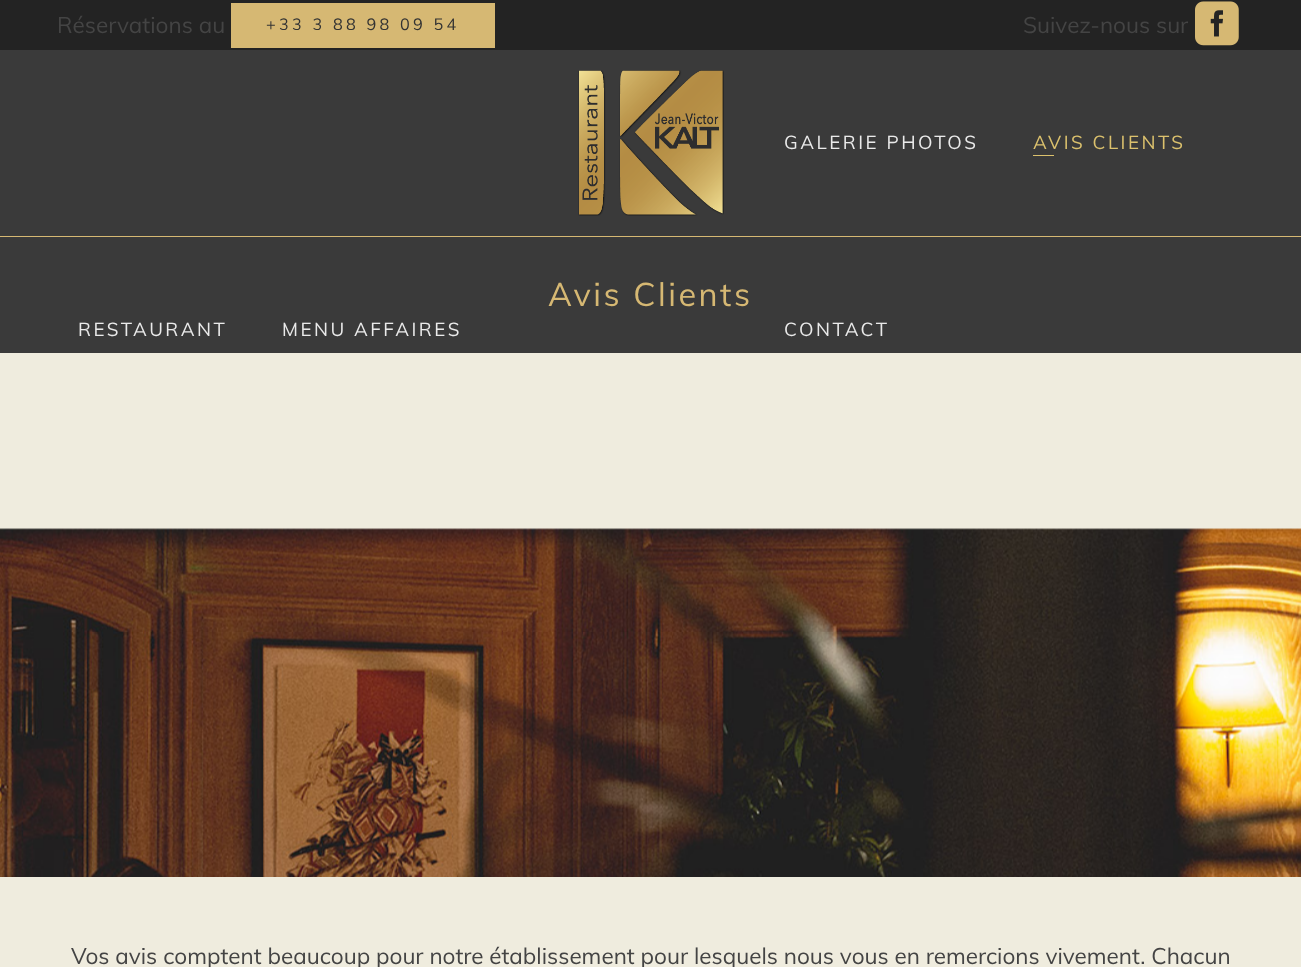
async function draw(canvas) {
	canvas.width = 1301;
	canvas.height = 967;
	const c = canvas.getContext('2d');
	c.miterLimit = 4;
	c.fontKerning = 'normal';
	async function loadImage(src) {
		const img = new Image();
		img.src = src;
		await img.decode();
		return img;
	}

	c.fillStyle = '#efecde';
	c.fillRect(0, 0, 1301, 967);
	c.fillStyle = '#232323';
	c.fillRect(0, 0, 1301, 50);
	c.font = '22.5px Muli';
	c.fillStyle = '#444';
	c.fillText('Réservations au', 57, 33);
	c.fillStyle = '#d6b873';
	c.fillRect(231, 3, 264, 45);
	c.letterSpacing = '3.25px';
	c.font = '16.25px Muli';
	c.fillStyle = '#333';
	c.fillText('+33 3 88 98 09 54', 266, 30);
	c.letterSpacing = '0px';
	c.font = '22.5px Muli';
	c.fillStyle = '#444';
	c.fillText('Suivez-nous sur', 1023, 33);
	c.drawImage(await loadImage('img1.png'), 1195, 1, 44, 45);
	c.fillStyle = '#3a3a3a';
	c.fillRect(0, 50, 1301, 303);
	c.fillStyle = '#d6b873';
	c.fillRect(0, 236, 1301, 1);
	c.letterSpacing = '2.5px';
	c.font = '18.75px Muli';
	c.fillStyle = '#eaeaea';
	c.fillText('RESTAURANT', 78, 336);
	c.fillText('MENU AFFAIRES', 282, 336);
	c.drawImage(await loadImage('img2.png'), 578, 70, 146, 146);
	c.fillText('GALERIE PHOTOS', 784, 149);
	c.fillStyle = '#dbc16d';
	c.fillText('AVIS CLIENTS', 1033, 149);
	c.fillRect(1033, 155, 21, 1);
	c.fillStyle = '#eaeaea';
	c.fillText('CONTACT', 784, 336);
	c.font = '32.5px Muli';
	c.fillStyle = '#d6b873';
	c.fillText('Avis Clients', 548, 306);
	c.drawImage(await loadImage('img3.png'), 0, 528, 1301, 349);
	c.letterSpacing = '0px';
	c.font = '22.5px Muli';
	c.fillStyle = '#444';
	c.fillText('Vos avis comptent beaucoup pour notre établissement pour lesquels nous vous en remercions vivement. Chacun', 71, 964);
}

draw(document.querySelector('canvas'));
